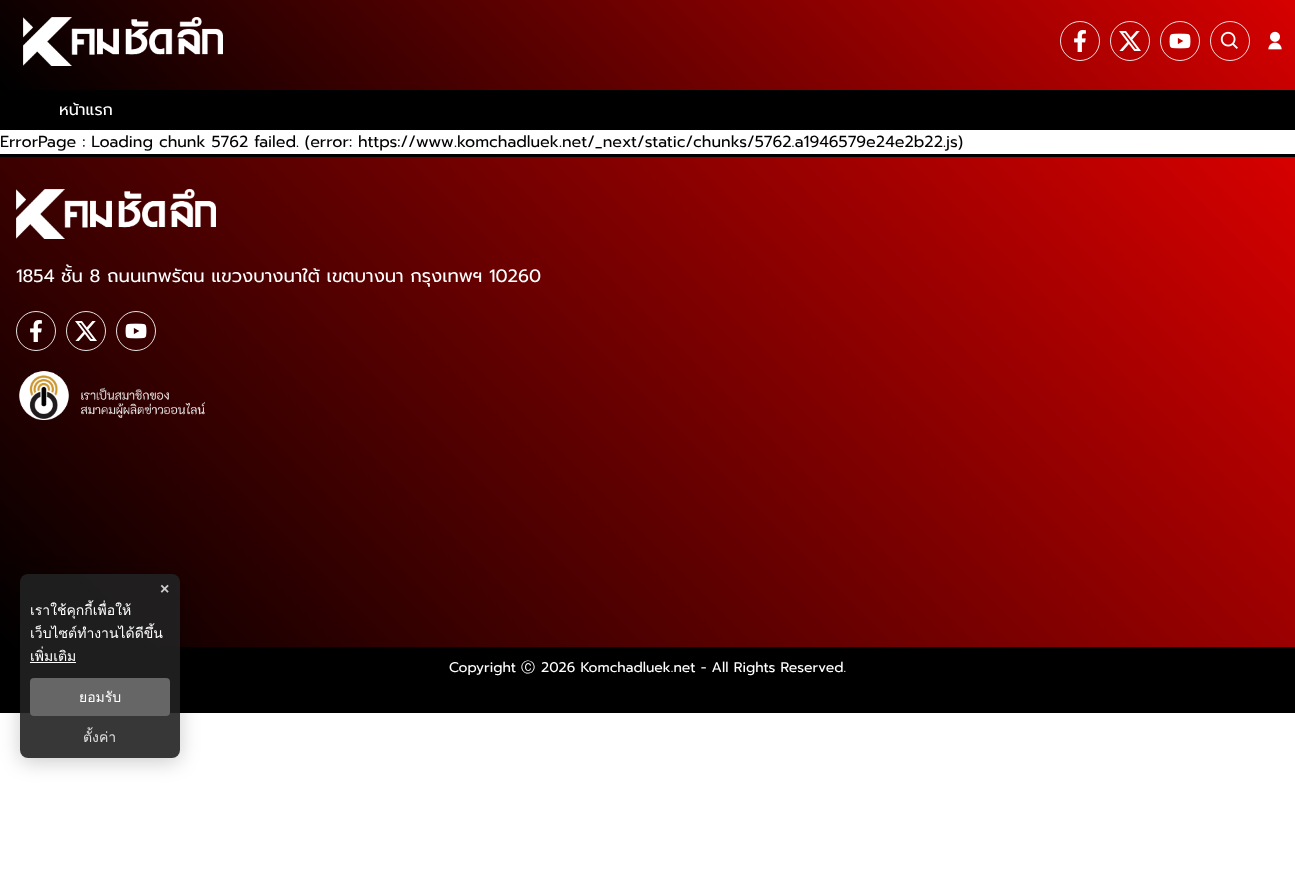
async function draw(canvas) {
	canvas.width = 1295;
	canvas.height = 878;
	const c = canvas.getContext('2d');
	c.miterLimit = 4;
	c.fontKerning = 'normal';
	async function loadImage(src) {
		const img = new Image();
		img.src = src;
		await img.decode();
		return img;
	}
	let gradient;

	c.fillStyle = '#fff';
	c.fillRect(0, 0, 1295, 878);
	c.fillStyle = '#000';
	c.fillRect(0, 90, 1295, 40);
	gradient = c.createLinearGradient(301, 391, 994, -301);
	gradient.addColorStop(0, '#000');
	gradient.addColorStop(1, '#d70000');
	c.fillStyle = gradient;
	c.fillRect(0, 0, 1295, 90);
	c.drawImage(await loadImage('img1.png'), 23, 17, 200, 49);
	c.beginPath();
	c.arc(1080, 41, 19.5, 0, 2 * Math.PI);
	c.strokeStyle = '#f7f7f7e6';
	c.stroke();
	c.drawImage(await loadImage('img2.png'), 1074, 30, 12, 22);
	c.beginPath();
	c.arc(1130, 41, 19.5, 0, 2 * Math.PI);
	c.stroke();
	c.drawImage(await loadImage('img3.png'), 1119, 31, 22, 20);
	c.beginPath();
	c.arc(1180, 41, 19.5, 0, 2 * Math.PI);
	c.stroke();
	c.drawImage(await loadImage('img4.png'), 1169, 33, 22, 16);
	c.beginPath();
	c.arc(1230, 41, 19.5, 0, 2 * Math.PI);
	c.stroke();
	c.drawImage(await loadImage('img5.png'), 1220, 31, 18, 18);
	c.drawImage(await loadImage('img6.png'), 1268, 31, 14, 19);
	c.font = '16px Prompt';
	c.fillStyle = '#fff';
	c.fillText('หน้าแรก', 59, 115);
	c.fillStyle = '#000';
	c.fillText('ErrorPage : Loading chunk 5762 failed. (error: https://www.komchadluek.net/_next/static/chunks/5762.a1946579e24e2b22.js)', 0, 147);
	gradient = c.createLinearGradient(200, 854, 1096, -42);
	gradient.addColorStop(0, '#000');
	gradient.addColorStop(1, '#d70000');
	c.fillStyle = gradient;
	c.fillRect(0, 157, 1295, 490);
	c.fillStyle = '#000';
	c.fillRect(0, 154, 1295, 3);
	c.drawImage(await loadImage('img7.png'), 16, 189, 200, 50);
	c.font = '18px Prompt';
	c.fillStyle = '#fff';
	c.fillText('1854 ชั้น 8 ถนนเทพรัตน แขวงบางนาใต้ เขตบางนา กรุงเทพฯ 10260', 16, 282);
	c.beginPath();
	c.arc(36, 331, 19.5, 0, 2 * Math.PI);
	c.stroke();
	c.drawImage(await loadImage('img8.png'), 30, 320, 12, 22);
	c.beginPath();
	c.arc(86, 331, 19.5, 0, 2 * Math.PI);
	c.stroke();
	c.drawImage(await loadImage('img9.png'), 75, 321, 22, 20);
	c.beginPath();
	c.arc(136, 331, 19.5, 0, 2 * Math.PI);
	c.stroke();
	c.drawImage(await loadImage('img10.png'), 125, 323, 22, 16);
	c.drawImage(await loadImage('img11.png'), 19, 371, 186, 49);
	c.fillStyle = '#000';
	c.fillRect(0, 647, 1295, 66);
	c.font = '14px Prompt';
	c.fillStyle = '#fff';
	c.fillText('Copyright', 449, 672);
	c.font = '500 14px WenQuanYi Zen Hei';
	c.fillText('Ⓒ', 521, 672);
	c.font = '14px Prompt';
	c.fillText('2026 Komchadluek.net - All Rights Reserved.', 541, 672);
	c.save();
	c.beginPath();
	c.moveTo(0, 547);
	c.lineTo(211, 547);
	c.lineTo(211, 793);
	c.lineTo(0, 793);
	c.closePath();
	c.moveTo(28, 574);
	c.lineTo(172, 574);
	c.bezierCurveTo(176.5, 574, 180, 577.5, 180, 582);
	c.lineTo(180, 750);
	c.bezierCurveTo(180, 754.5, 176.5, 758, 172, 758);
	c.lineTo(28, 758);
	c.bezierCurveTo(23.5, 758, 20, 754.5, 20, 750);
	c.lineTo(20, 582);
	c.bezierCurveTo(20, 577.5, 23.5, 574, 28, 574);
	c.closePath();
	c.clip('evenodd');
	c.fillStyle = '#00000033';
	c.filter = 'blur(10px)';
	c.beginPath();
	c.roundRect(20, 578, 160, 184, 8);
	c.fill();
	c.filter = 'none';
	c.restore();
	c.fillStyle = '#212121e6';
	c.beginPath();
	c.roundRect(20, 574, 160, 184, 8);
	c.fill();
	c.font = 'bold 16px Liberation Sans';
	c.fillStyle = '#ccc';
	c.fillText('×', 160, 594);
	c.font = '14px Loma';
	c.fillStyle = '#fff';
	for (const [text, x, y] of [
		['เราใช้คุกกี้เพื่อให้', 30, 615],
		['เว็บไซต์ทำงานได้ดีขึ้น', 30, 638],
		['เพิ่มเติม', 30, 661],
	]) {
		c.fillText(text, x, y);
	}
	c.fillRect(30, 662, 46, 1);
	c.fillStyle = '#666';
	c.beginPath();
	c.roundRect(30, 678, 140, 38, 4);
	c.fill();
	c.fillStyle = '#fff';
	c.fillText('ยอมรับ', 79, 702);
	c.fillStyle = '#e0e0e0';
	c.fillText('ตั้งค่า', 83, 742);
}

draw(document.querySelector('canvas'));
